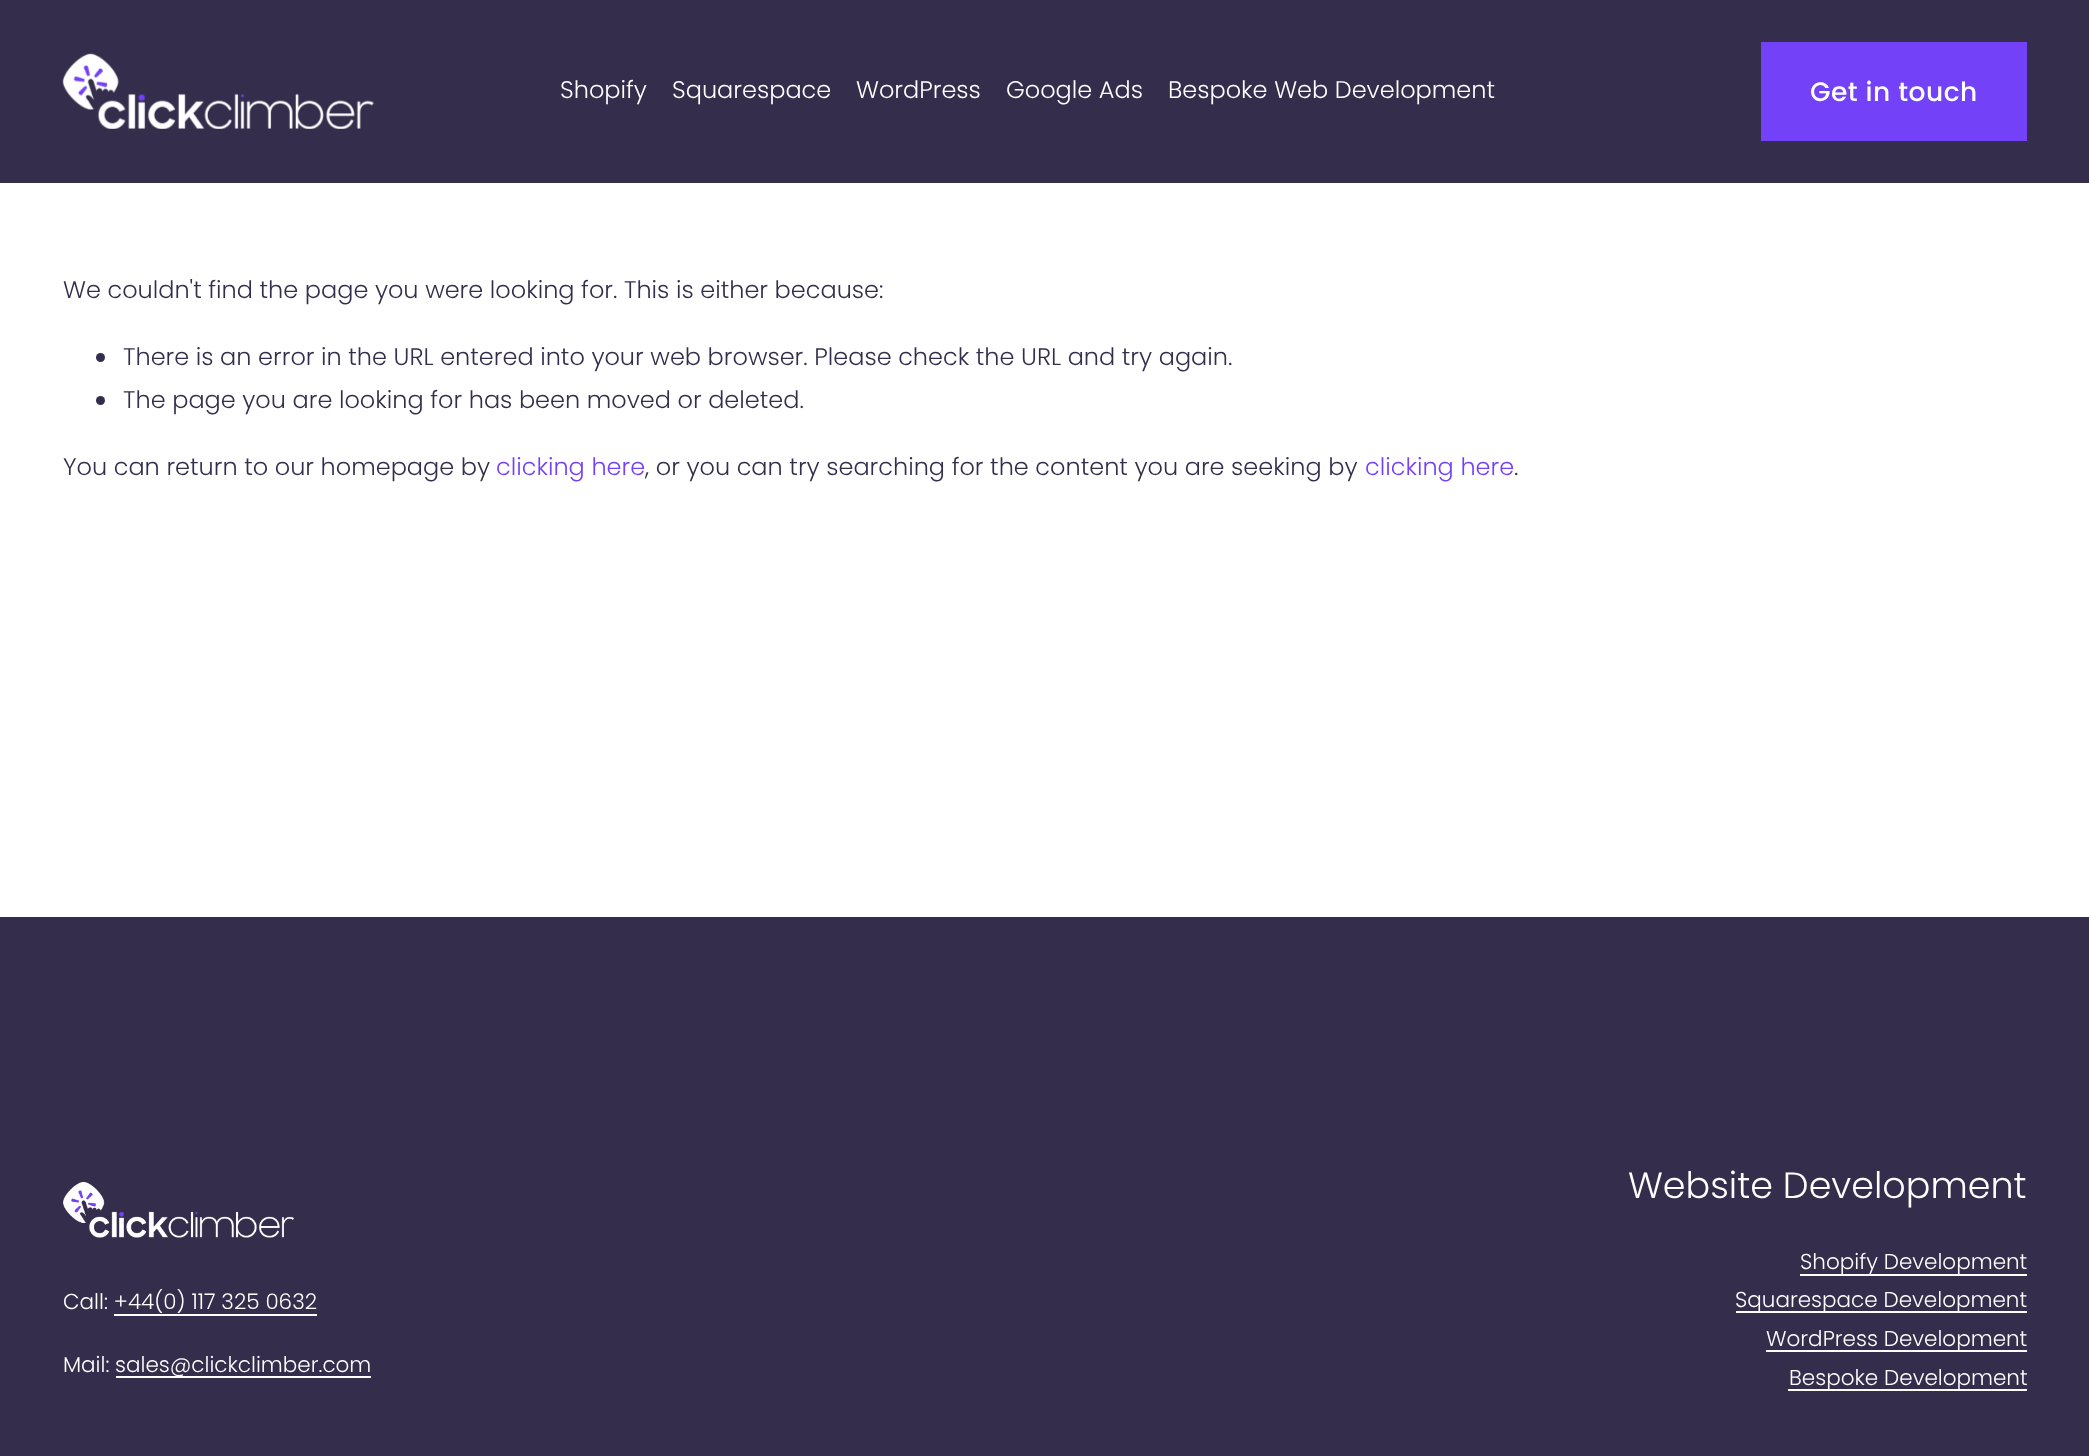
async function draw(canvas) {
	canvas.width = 2089;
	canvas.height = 1456;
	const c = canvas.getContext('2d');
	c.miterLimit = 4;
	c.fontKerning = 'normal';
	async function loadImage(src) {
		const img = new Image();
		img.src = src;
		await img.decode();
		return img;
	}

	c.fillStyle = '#fff';
	c.fillRect(0, 0, 2089, 1456);
	c.fillStyle = '#342e4c';
	c.fillRect(0, 0, 2089, 183);
	c.drawImage(await loadImage('img1.png'), 62, 53, 312, 76);
	c.font = '300 24px Poppins';
	c.fillStyle = '#fff';
	for (const [text, x, y] of [
		['Shopify', 560, 98],
		['Squarespace', 672, 98],
		['WordPress', 856, 98],
		['Google Ads', 1006, 98],
		['Bespoke Web Development', 1168, 98],
	]) {
		c.fillText(text, x, y);
	}
	c.fillStyle = '#7341f8';
	c.fillRect(1761, 42, 266, 99);
	c.letterSpacing = '0.5px';
	c.font = '500 26.5px Poppins';
	c.fillStyle = '#fff';
	c.fillText('Get in touch', 1810, 101);
	c.letterSpacing = '0px';
	c.font = '300 24px Poppins';
	c.fillStyle = '#342e4c';
	c.fillText('We couldn\'t find the page you were looking for. This is either because:', 63, 298);
	c.beginPath();
	c.arc(100.5, 357.5, 4.5, 0, 2 * Math.PI);
	c.fill();
	c.fillText('There is an error in the URL entered into your web browser. Please check the URL and try again.', 123, 365);
	c.beginPath();
	c.arc(100.5, 400.5, 4.5, 0, 2 * Math.PI);
	c.fill();
	c.fillText('The page you are looking for has been moved or deleted.', 123, 408);
	c.fillText('You can return to our homepage by', 63, 475);
	c.fillStyle = '#7341f8';
	c.fillText('clicking here', 496, 475);
	c.fillStyle = '#342e4c';
	c.fillText(', or you can try searching for the content you are seeking by', 645, 475);
	c.fillStyle = '#7341f8';
	c.fillText('clicking here', 1365, 475);
	c.fillStyle = '#342e4c';
	c.fillText('.', 1514, 475);
	c.fillRect(0, 917, 2089, 539);
	c.drawImage(await loadImage('img2.png'), 63, 1182, 231, 56);
	c.font = '300 36.5px Poppins';
	c.fillStyle = '#fff';
	c.fillText('Website Development', 1628, 1198);
	c.fillRect(1800, 1274, 227, 2);
	c.font = '300 21.5px Poppins';
	c.fillText('Shopify Development', 1800, 1269);
	c.fillRect(1736, 1311, 291, 2);
	c.fillText('Squarespace Development', 1735, 1307);
	c.fillRect(1766, 1350, 261, 2);
	c.fillText('WordPress Development', 1766, 1346);
	c.fillRect(1788, 1389, 239, 2);
	c.fillText('Bespoke Development', 1789, 1385);
	c.fillText('Call: +44(0) 117 325 0632', 63, 1309);
	c.fillRect(114, 1314, 203, 2);
	c.fillText('Mail:', 63, 1372);
	c.fillRect(116, 1376, 255, 2);
	c.fillText('sales@clickclimber.com', 115, 1372);
}

draw(document.querySelector('canvas'));
